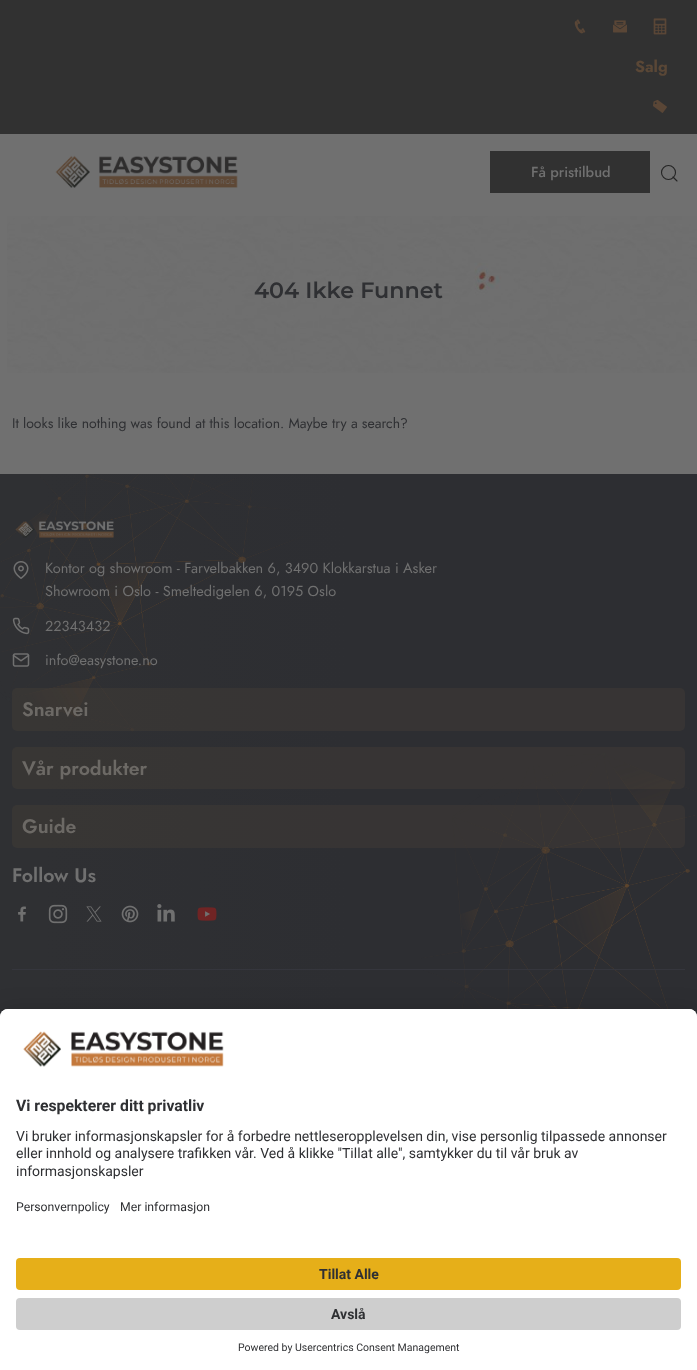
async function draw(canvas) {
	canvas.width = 697;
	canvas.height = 1370;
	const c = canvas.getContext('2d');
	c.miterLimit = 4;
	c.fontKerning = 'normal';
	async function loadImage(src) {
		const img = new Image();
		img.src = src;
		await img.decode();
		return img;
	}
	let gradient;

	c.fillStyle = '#707070';
	c.fillRect(0, 0, 697, 1370);
	c.fillStyle = '#313131';
	c.fillRect(0, 0, 697, 134);
	c.drawImage(await loadImage('img1.png'), 574, 19, 12, 15);
	c.drawImage(await loadImage('img2.png'), 613, 20, 14, 13);
	c.drawImage(await loadImage('img3.png'), 653, 18, 14, 17);
	c.font = 'bold 16px Jost';
	c.fillStyle = '#5a4736';
	c.fillText('Salg', 635, 72);
	c.drawImage(await loadImage('img4.png'), 653, 99, 14, 14);
	c.drawImage(await loadImage('img5.png'), 55, 155, 183, 33);
	c.fillStyle = '#313131';
	c.fillRect(490, 151, 160, 42);
	c.font = '500 14.5px Jost';
	c.fillStyle = '#707070';
	c.fillText('Få pristilbud', 531, 177);
	c.beginPath();
	c.arc(668.5, 172.5, 7, 0, 2 * Math.PI);
	c.strokeStyle = '#242424';
	c.lineWidth = 1.1;
	c.stroke();
	c.beginPath();
	c.moveTo(677, 181);
	c.lineTo(673, 177);
	c.lineCap = 'round';
	c.lineJoin = 'round';
	c.stroke();
	c.drawImage(await loadImage('img6.png'), 7, 216, 690, 157);
	c.font = '600 22.25px Montserrat';
	c.fillStyle = '#2f3033';
	c.fillText('404 Ikke Funnet', 254, 298);
	c.font = '14px Jost';
	c.fillText('It looks like nothing was found at this location. Maybe try a search?', 12, 428);
	gradient = c.createLinearGradient(0, 759, 697, 759);
	gradient.addColorStop(0.06, '#2f3033');
	gradient.addColorStop(0.5, '#2d2e32');
	c.fillStyle = gradient;
	c.fillRect(0, 474, 697, 543);
	c.drawImage(await loadImage('img7.png'), 0, 474, 303, 258);
	c.drawImage(await loadImage('img8.png'), 15, 521, 99, 17);
	c.drawImage(await loadImage('img9.png'), 13, 561, 16, 18);
	c.font = '14.5px Jost';
	c.fillStyle = '#707070';
	c.fillText('Kontor og showroom - Farvelbakken 6, 3490 Klokkarstua i Asker', 45, 573);
	c.fillText('Showroom i Oslo - Smeltedigelen 6, 0195 Oslo', 45, 596);
	c.drawImage(await loadImage('img10.png'), 12, 617, 18, 18);
	c.fillText('22343432', 45, 631);
	c.drawImage(await loadImage('img11.png'), 12, 653, 18, 14);
	c.fillText('info@easystone.no', 45, 665);
	c.font = '600 19.5px Jost';
	c.fillText('Snarvei', 22, 716);
	c.fillStyle = '#5f4f3e33';
	c.beginPath();
	c.roundRect(12, 688, 673, 43, 5);
	c.fill();
	c.fillStyle = '#707070';
	c.fillText('Vår produkter', 22, 775);
	c.drawImage(await loadImage('img18.png'), 419, 753, 278, 256);
	c.fillStyle = '#5f4f3e33';
	c.beginPath();
	c.roundRect(12, 747, 673, 42, 5);
	c.fill();
	c.fillStyle = '#707070';
	c.fillText('Guide', 22, 833);
	c.fillStyle = '#5f4f3e33';
	c.beginPath();
	c.roundRect(12, 805, 673, 43, 5);
	c.fill();
	c.fillStyle = '#707070';
	c.fillText('Follow Us', 12, 882);
	c.drawImage(await loadImage('img12.png'), 18, 906, 8, 16);
	c.drawImage(await loadImage('img13.png'), 48, 904, 20, 20);
	c.drawImage(await loadImage('img14.png'), 86, 906, 16, 16);
	c.drawImage(await loadImage('img15.png'), 121, 905, 18, 18);
	c.drawImage(await loadImage('img16.png'), 157, 904, 18, 18);
	c.drawImage(await loadImage('img17.png'), 197, 907, 20, 14);
	c.fillStyle = '#35363d';
	c.fillRect(12, 969, 673, 1);
	c.fillStyle = '#00000038';
	c.filter = 'blur(13px)';
	c.beginPath();
	c.roundRect(0, 1014, 697, 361, 8);
	c.fill();
	c.filter = 'none';
	c.fillStyle = '#fff';
	c.beginPath();
	c.roundRect(0, 1009, 697, 361, [8, 8, 0, 0]);
	c.fill();
	c.beginPath();
	c.roundRect(0, 1009, 697, 237, [8, 8, 0, 0]);
	c.fill();
	c.drawImage(await loadImage('img19.png'), 23, 1031, 201, 36);
	c.font = 'bold 15.75px Roboto';
	c.fillStyle = '#2f3033';
	c.fillText('Vi respekterer ditt privatliv', 16, 1111);
	c.font = '14px Roboto';
	for (const [text, x, y] of [
		['Vi bruker informasjonskapsler for å forbedre nettleseropplevelsen din, vise personlig tilpassede annonser', 16, 1141],
		['eller innhold og analysere trafikken vår. Ved å klikke "Tillat alle", samtykker du til vår bruk av', 16, 1158],
		['informasjonskapsler', 16, 1176],
	]) {
		c.fillText(text, x, y);
	}
	c.font = '12.25px Roboto';
	c.fillText('Personvernpolicy', 16, 1211);
	c.fillText('Mer informasjon', 120, 1211);
	c.fillStyle = '#e6af19';
	c.beginPath();
	c.roundRect(16, 1258, 665, 32, 4);
	c.fill();
	c.font = 'bold 14px Roboto';
	c.fillStyle = '#2f3033';
	c.fillText('Tillat Alle', 319, 1279);
	c.fillStyle = '#cecece';
	c.beginPath();
	c.roundRect(16, 1298, 665, 32, 4);
	c.fill();
	c.fillStyle = '#2f3033';
	c.fillText('Avslå', 331, 1319);
	c.font = '10.5px Roboto';
	c.fillText('Powered by Usercentrics Consent Management', 238, 1351);
}

draw(document.querySelector('canvas'));
